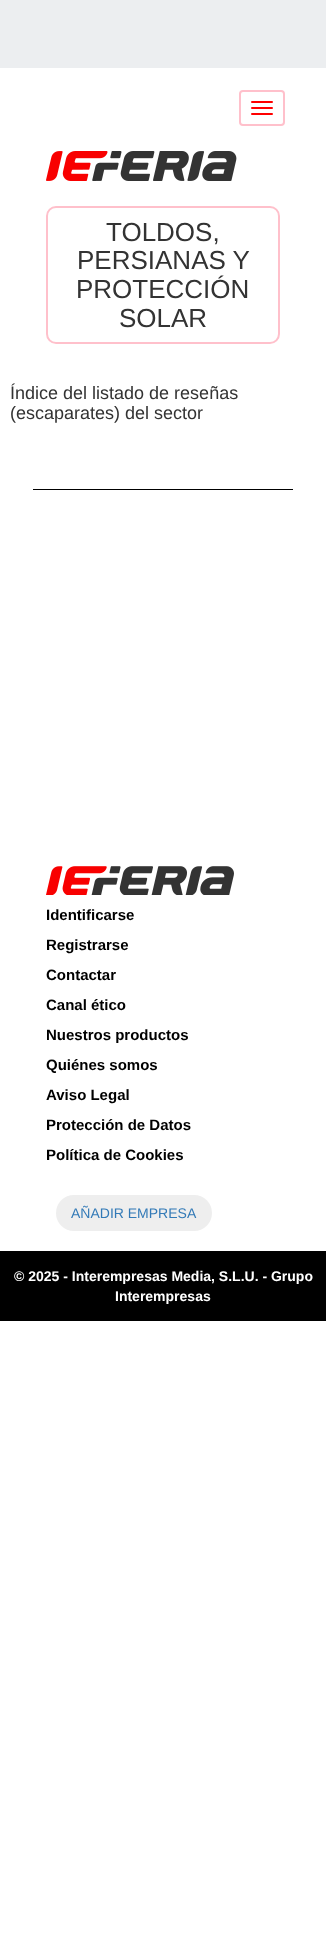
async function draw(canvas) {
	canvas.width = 326;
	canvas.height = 1934;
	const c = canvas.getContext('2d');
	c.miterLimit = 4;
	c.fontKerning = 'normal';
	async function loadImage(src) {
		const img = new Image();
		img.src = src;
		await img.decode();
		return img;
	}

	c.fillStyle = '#fff';
	c.fillRect(0, 0, 326, 1934);
	c.fillStyle = '#eceef0';
	c.fillRect(0, 0, 326, 68);
	c.beginPath();
	c.roundRect(240, 91, 44, 34, 3);
	c.strokeStyle = '#ffc0cb';
	c.lineWidth = 2;
	c.stroke();
	c.fillStyle = '#f00';
	c.beginPath();
	c.roundRect(251, 101, 22, 2, 1);
	c.fill();
	c.beginPath();
	c.roundRect(251, 107, 22, 2, 1);
	c.fill();
	c.beginPath();
	c.roundRect(251, 113, 22, 2, 1);
	c.fill();
	c.drawImage(await loadImage('img1.png'), 46, 151, 191, 30);
	c.beginPath();
	c.roundRect(47, 207, 232, 136, 9);
	c.stroke();
	c.font = '26px Liberation Sans';
	c.fillStyle = '#333';
	for (const [text, x, y] of [
		['TOLDOS,', 106, 241],
		['PERSIANAS Y', 77, 269],
		['PROTECCIÓN', 76, 298],
		['SOLAR', 119, 327],
	]) {
		c.fillText(text, x, y);
	}
	c.font = '18px Liberation Sans';
	c.fillText('Índice del listado de reseñas', 10, 399);
	c.fillText('(escaparates) del sector', 10, 419);
	c.fillStyle = '#000';
	c.fillRect(33, 489, 260, 1);
	c.drawImage(await loadImage('img2.png'), 46, 866, 188, 29);
	c.font = 'bold 15px Liberation Sans';
	for (const [text, x, y] of [
		['Identificarse', 46, 920],
		['Registrarse', 46, 950],
		['Contactar', 46, 980],
		['Canal ético', 46, 1010],
		['Nuestros productos', 46, 1040],
		['Quiénes somos', 46, 1070],
		['Aviso Legal', 46, 1100],
		['Protección de Datos', 46, 1130],
		['Política de Cookies', 46, 1160],
	]) {
		c.fillText(text, x, y);
	}
	c.fillStyle = '#eee';
	c.beginPath();
	c.roundRect(56, 1195, 156, 36, 18);
	c.fill();
	c.font = '14px Liberation Sans';
	c.fillStyle = '#337ab7';
	c.fillText('AÑADIR EMPRESA', 71, 1218);
	c.fillStyle = '#000';
	c.fillRect(0, 1251, 326, 70);
	c.font = 'bold 14px Liberation Sans';
	c.fillStyle = '#fff';
	c.fillText('© 2025 - Interempresas Media, S.L.U. - Grupo', 14, 1281);
	c.fillText('Interempresas', 115, 1301);
}

draw(document.querySelector('canvas'));
